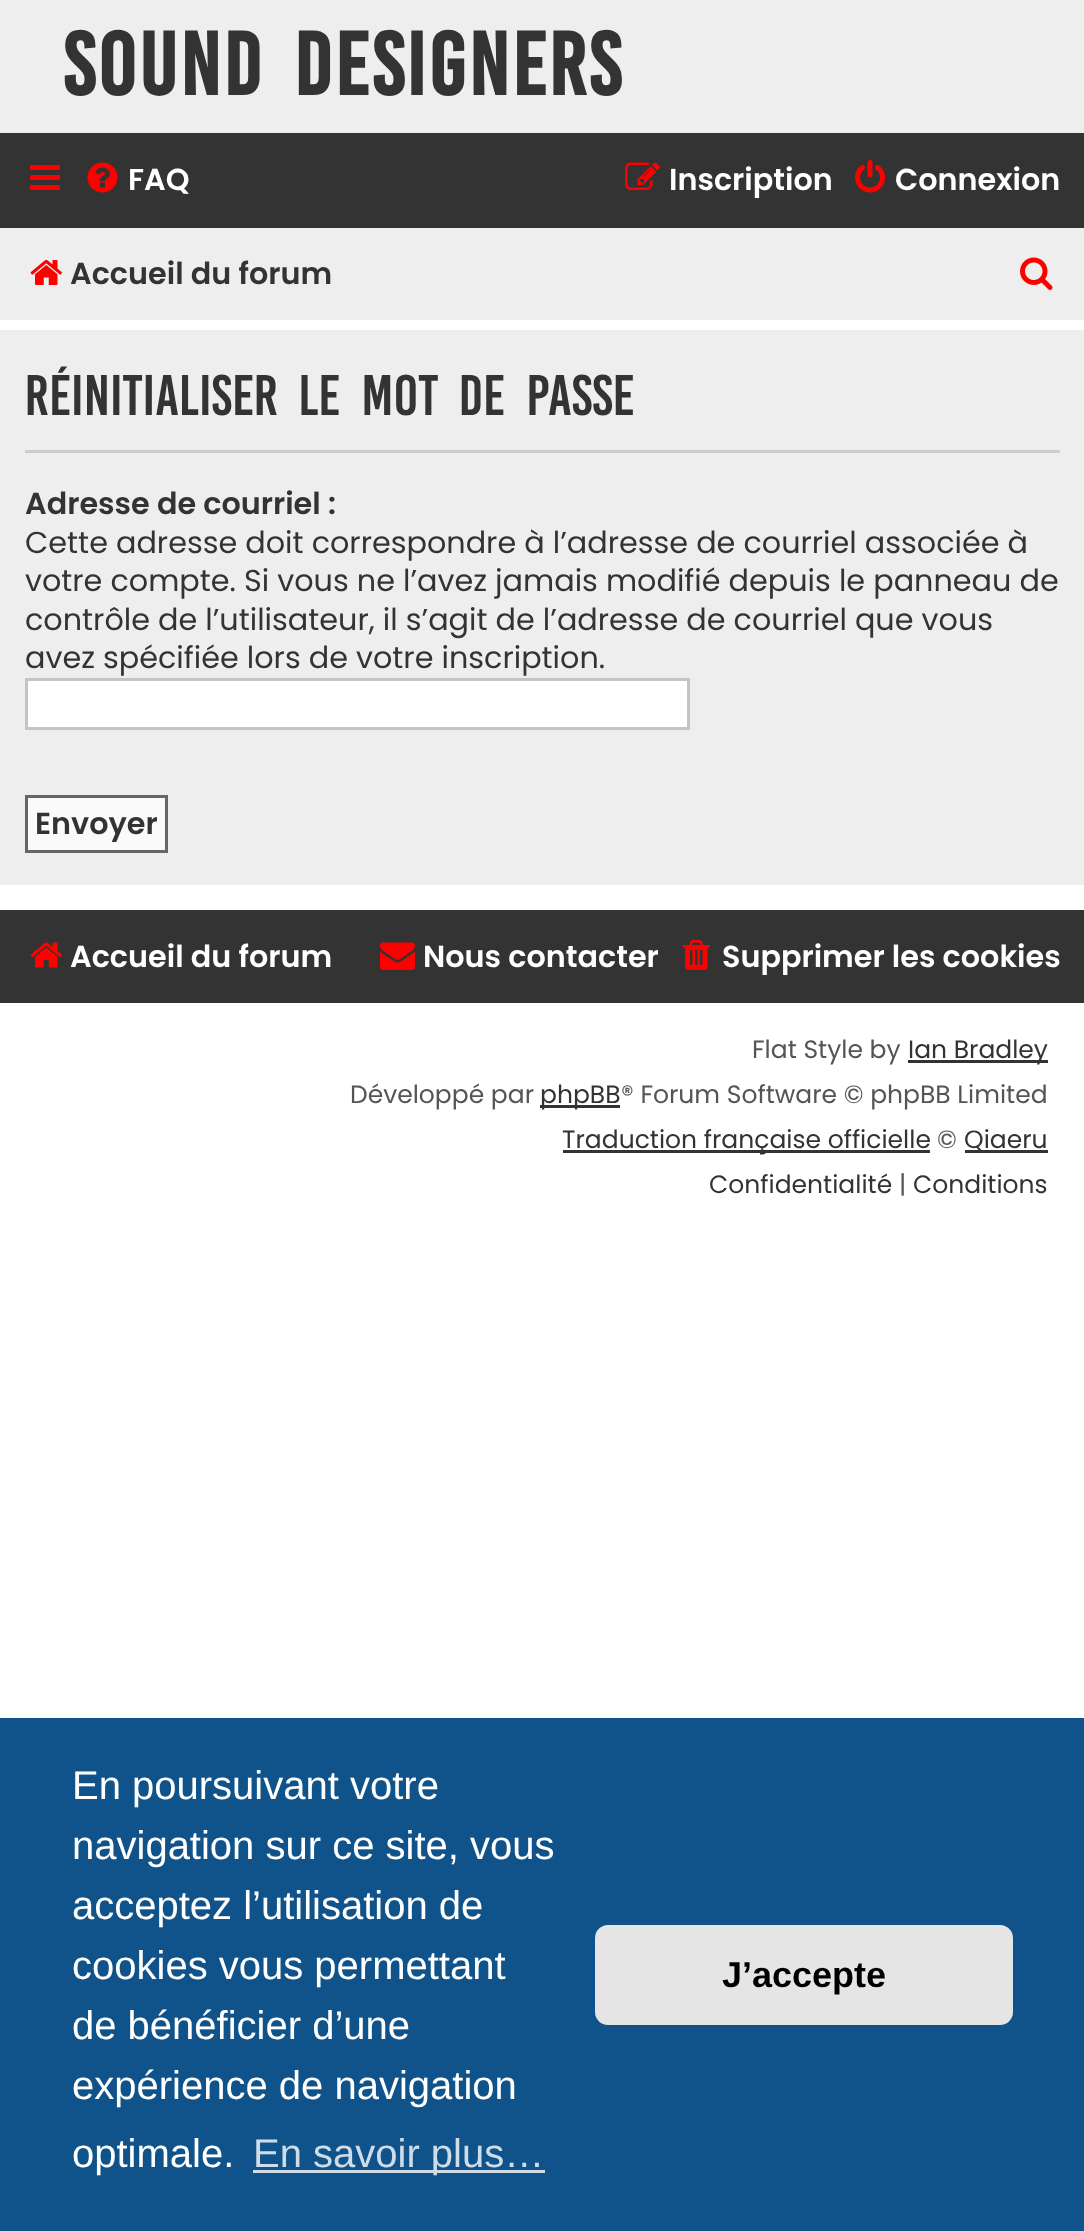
async function draw(canvas) {
	canvas.width = 1084;
	canvas.height = 2231;
	const c = canvas.getContext('2d');
	c.miterLimit = 4;
	c.fontKerning = 'normal';
	async function loadImage(src) {
		const img = new Image();
		img.src = src;
		await img.decode();
		return img;
	}

	c.fillStyle = '#fff';
	c.fillRect(0, 0, 1084, 2231);
	c.fillStyle = '#eee';
	c.fillRect(0, 0, 1084, 133);
	c.letterSpacing = '2.5px';
	c.wordSpacing = '10px';
	c.font = 'bold 68.75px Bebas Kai';
	c.fillStyle = '#333';
	c.fillText('Sound Designers', 63, 95);
	c.fillRect(0, 133, 1084, 95);
	c.drawImage(await loadImage('img1.png'), 30, 165, 30, 25);
	c.drawImage(await loadImage('img2.png'), 87, 162, 31, 31);
	c.letterSpacing = '0px';
	c.wordSpacing = '0px';
	c.font = '600 30.25px Poppins';
	c.fillStyle = '#fff';
	c.fillText('FAQ', 128, 190);
	c.drawImage(await loadImage('img3.png'), 625, 162, 35, 28);
	c.fillText('Inscription', 669, 190);
	c.drawImage(await loadImage('img4.png'), 855, 160, 30, 33);
	c.fillText('Connexion', 895, 190);
	c.fillStyle = '#eee';
	c.fillRect(0, 228, 1084, 92);
	c.drawImage(await loadImage('img5.png'), 30, 259, 32, 26);
	c.fillStyle = '#333';
	c.fillText('Accueil du forum', 70, 284);
	c.drawImage(await loadImage('img6.png'), 1020, 257, 33, 33);
	c.fillStyle = '#eee';
	c.fillRect(0, 330, 1084, 555);
	c.fillStyle = '#ccc';
	c.fillRect(25, 450, 1035, 3);
	c.wordSpacing = '10px';
	c.font = '44px Bebas Kai';
	c.fillStyle = '#333';
	c.fillText('Réinitialiser le mot de passe', 25, 415);
	c.wordSpacing = '0px';
	c.font = '600 30.25px Poppins';
	c.fillText('Adresse de courriel :', 25, 514);
	c.font = '30.25px Poppins';
	for (const [text, x, y] of [
		['Cette adresse doit correspondre à l’adresse de courriel associée à', 25, 553],
		['votre compte. Si vous ne l’avez jamais modifié depuis le panneau de', 25, 591],
		['contrôle de l’utilisateur, il s’agit de l’adresse de courriel que vous', 25, 630],
		['avez spécifiée lors de votre inscription.', 25, 668],
	]) {
		c.fillText(text, x, y);
	}
	c.fillStyle = '#fff';
	c.beginPath();
	c.rect(26.5, 679.5, 662, 49);
	c.fill();
	c.strokeStyle = '#c7c3bf';
	c.lineWidth = 3;
	c.stroke();
	c.fillStyle = '#fafafa';
	c.beginPath();
	c.rect(26.5, 796.5, 140, 55);
	c.fill();
	c.strokeStyle = '#666';
	c.stroke();
	c.font = '600 30.25px Poppins';
	c.fillStyle = '#333';
	c.fillText('Envoyer', 35, 834);
	c.fillRect(0, 910, 1084, 93);
	c.drawImage(await loadImage('img7.png'), 30, 942, 32, 26);
	c.fillStyle = '#fff';
	c.fillText('Accueil du forum', 70, 967);
	c.drawImage(await loadImage('img8.png'), 380, 942, 35, 28);
	c.fillText('Nous contacter', 423, 967);
	c.drawImage(await loadImage('img9.png'), 682, 940, 28, 30);
	c.fillText('Supprimer les cookies', 722, 967);
	c.font = '25px Poppins';
	c.fillStyle = '#555';
	c.fillText('Flat Style by', 752, 1058);
	c.fillStyle = '#333';
	c.fillRect(908, 1060, 140, 3);
	c.fillText('Ian Bradley', 908, 1058);
	c.fillStyle = '#555';
	c.fillText('Développé par', 350, 1103);
	c.fillStyle = '#333';
	c.fillRect(540, 1105, 80, 3);
	c.fillText('phpBB', 540, 1103);
	c.fillStyle = '#555';
	c.fillText('® Forum Software © phpBB Limited', 621, 1103);
	c.fillStyle = '#333';
	c.fillRect(563, 1150, 367, 3);
	c.fillText('Traduction française officielle', 562, 1148);
	c.fillStyle = '#555';
	c.fillText('©', 937, 1148);
	c.fillStyle = '#333';
	c.fillRect(965, 1150, 83, 3);
	c.fillText('Qiaeru', 964, 1148);
	c.fillText('Confidentialité', 709, 1193);
	c.fillStyle = '#555';
	c.fillText('|', 899, 1193);
	c.fillStyle = '#333';
	c.fillText('Conditions', 913, 1193);
	c.fillStyle = '#0f538a';
	c.fillRect(0, 1718, 1084, 513);
	c.font = '40px Liberation Sans';
	c.fillStyle = '#fff';
	for (const [text, x, y] of [
		['En poursuivant votre', 72, 1799],
		['navigation sur ce site, vous', 72, 1859],
		['acceptez l’utilisation de', 72, 1919],
		['cookies vous permettant', 72, 1979],
		['de bénéficier d’une', 72, 2039],
		['expérience de navigation', 72, 2099],
		['optimale.', 72, 2167],
	]) {
		c.fillText(text, x, y);
	}
	c.fillStyle = '#cfdde8';
	c.fillRect(253, 2170, 292, 3);
	c.fillText('En savoir plus…', 253, 2167);
	c.fillStyle = '#e5e5e5';
	c.beginPath();
	c.roundRect(595, 1925, 418, 100, 13);
	c.fill();
	c.font = 'bold 36px Liberation Sans';
	c.fillStyle = '#000';
	c.fillText('J’accepte', 722, 1987);
}

draw(document.querySelector('canvas'));
